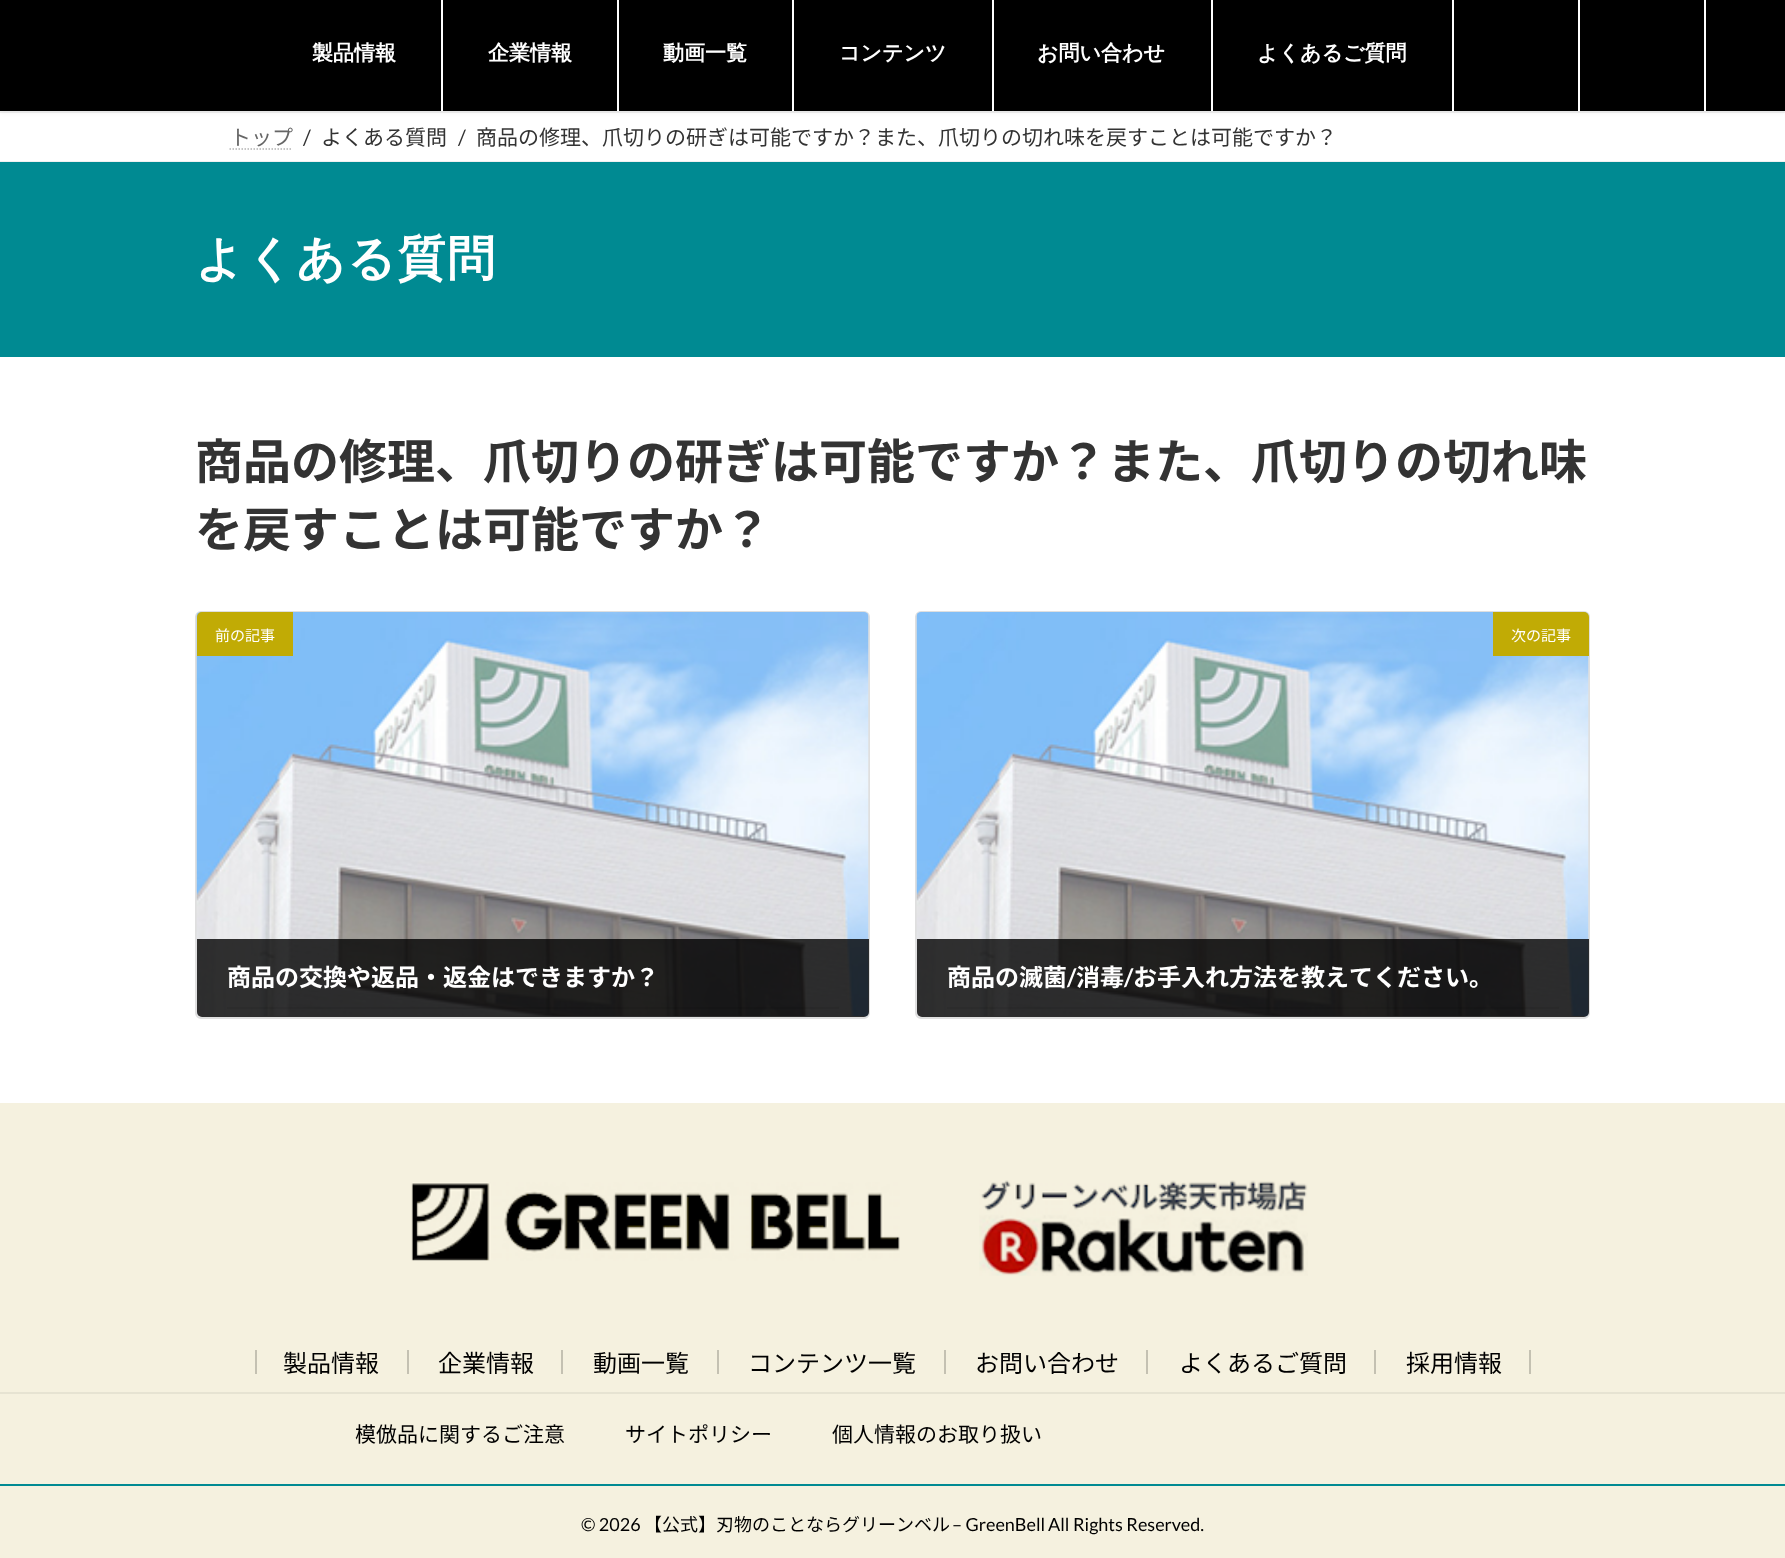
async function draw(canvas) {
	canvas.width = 1785;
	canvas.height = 1558;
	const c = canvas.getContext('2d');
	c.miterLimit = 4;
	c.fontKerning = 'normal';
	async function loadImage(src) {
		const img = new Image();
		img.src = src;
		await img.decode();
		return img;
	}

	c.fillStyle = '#fff';
	c.fillRect(0, 0, 1785, 1558);
	c.fillStyle = '#f0f0f0';
	c.fillRect(0, 111, 1785, 2);
	c.fillStyle = '#0000000d';
	c.filter = 'blur(2px)';
	c.beginPath();
	c.rect(0, -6, 1785, 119);
	c.fill();
	c.filter = 'none';
	c.fillStyle = '#000';
	c.fillRect(0, 0, 1785, 111);
	c.font = 'bold 21px WenQuanYi Zen Hei';
	c.fillStyle = '#fff';
	c.fillText('製品情報', 312, 60);
	c.fillRect(441, 0, 2, 111);
	c.fillText('企業情報', 488, 60);
	c.fillRect(617, 0, 2, 111);
	c.fillText('動画一覧', 663, 60);
	c.fillRect(792, 0, 2, 111);
	c.fillText('コンテンツ', 839, 60);
	c.fillRect(992, 0, 2, 111);
	c.fillText('お問い合わせ', 1037, 60);
	c.fillRect(1211, 0, 2, 111);
	c.fillText('よくあるご質問', 1257, 60);
	for (const [x, y, w, h, color] of [
		[1452, 0, 2, 111, '#fff'],
		[1578, 0, 2, 111, '#fff'],
		[1704, 0, 2, 111, '#fff'],
		[0, 161, 1785, 1, '#f0f0f0'],
	]) {
		c.fillStyle = color;
		c.fillRect(x, y, w, h);
	}
	c.font = '21px Noto Sans JP';
	c.fillStyle = '#666';
	c.fillText('トップ', 230, 145);
	c.beginPath();
	c.moveTo(229.5, 149);
	c.lineTo(292.5, 149);
	c.strokeStyle = '#b3b3b3';
	c.lineWidth = 1.5;
	c.setLineDash([1.5, 1.5]);
	c.stroke();
	c.font = '21px Lato';
	c.fillStyle = '#333';
	c.fillText('/', 303, 145);
	c.font = '21px Noto Sans JP';
	c.fillText('よくある質問', 321, 145);
	c.font = '21px Lato';
	c.fillText('/', 458, 145);
	c.font = '21px Noto Sans JP';
	c.fillText('商品の修理、爪切りの研ぎは可能ですか？また、爪切りの切れ味を戻すことは可能ですか？', 476, 145);
	c.fillStyle = '#008a92';
	c.fillRect(0, 162, 1785, 195);
	c.letterSpacing = '1.5px';
	c.font = 'bold 48px WenQuanYi Zen Hei';
	c.fillStyle = '#fff';
	c.fillText('よくある質問', 195, 275);
	c.letterSpacing = '0px';
	c.font = 'bold 48px Noto Sans JP';
	c.fillStyle = '#333';
	c.fillText('商品の修理、爪切りの研ぎは可能ですか？また、爪切りの切れ味', 195, 479);
	c.fillText('を戻すことは可能ですか？', 195, 547);
	c.beginPath();
	c.roundRect(196, 612, 673, 406, 5);
	c.strokeStyle = '#dfdfdf';
	c.lineWidth = 2;
	c.setLineDash([]);
	c.stroke();
	c.drawImage(await loadImage('img1.png'), 196, 612, 673, 405);
	c.save();
	c.beginPath();
	c.roundRect(197, 612, 672, 405, 5);
	c.clip();
	c.fillStyle = '#e5e5e5';
	c.fillRect(197, 1016, 672, 1);
	c.restore();
	c.fillStyle = '#c1ab05';
	c.beginPath();
	c.roundRect(197, 612, 96, 44, [5, 0, 0, 0]);
	c.fill();
	c.font = '15px Noto Sans JP';
	c.fillStyle = '#fff';
	c.fillText('前の記事', 215, 641);
	c.fillStyle = '#000000cc';
	c.beginPath();
	c.roundRect(197, 939, 672, 78, [0, 0, 5, 5]);
	c.fill();
	c.fillStyle = '#0000000f';
	c.fillRect(227, 1007, 612, 2);
	c.font = 'bold 24px Noto Sans JP';
	c.fillStyle = '#fff';
	c.fillText('商品の交換や返品・返金はできますか？', 227, 986);
	c.beginPath();
	c.roundRect(916, 612, 673, 406, 5);
	c.stroke();
	c.drawImage(await loadImage('img2.png'), 916, 612, 673, 405);
	c.save();
	c.beginPath();
	c.roundRect(917, 612, 672, 405, 5);
	c.clip();
	c.fillStyle = '#e5e5e5';
	c.fillRect(917, 1016, 672, 1);
	c.restore();
	c.fillStyle = '#c1ab05';
	c.beginPath();
	c.roundRect(1493, 612, 96, 44, [0, 5, 0, 0]);
	c.fill();
	c.font = '15px Noto Sans JP';
	c.fillStyle = '#fff';
	c.fillText('次の記事', 1511, 641);
	c.fillStyle = '#000000cc';
	c.beginPath();
	c.roundRect(917, 939, 672, 78, [0, 0, 5, 5]);
	c.fill();
	c.fillStyle = '#0000000f';
	c.fillRect(947, 1007, 612, 2);
	c.font = 'bold 24px Noto Sans JP';
	c.fillStyle = '#fff';
	c.fillText('商品の滅菌', 947, 986);
	c.font = 'bold 24px Lato';
	c.fillText('/', 1067, 986);
	c.font = 'bold 24px Noto Sans JP';
	c.fillText('消毒', 1076, 986);
	c.font = 'bold 24px Lato';
	c.fillText('/', 1124, 986);
	c.font = 'bold 24px Noto Sans JP';
	c.fillText('お手入れ方法を教えてください。', 1133, 986);
	c.fillStyle = '#f5f1df';
	c.fillRect(0, 1103, 1785, 455);
	c.drawImage(await loadImage('img3.png'), 411, 1182, 489, 79);
	c.drawImage(await loadImage('img4.png'), 979, 1180, 329, 96);
	for (const [x, y, w, h, color] of [
		[0, 1392, 1785, 2, '#e6e3d2'],
		[407, 1350, 2, 24, '#c4c1b2'],
		[255, 1350, 2, 24, '#c4c1b2'],
	]) {
		c.fillStyle = color;
		c.fillRect(x, y, w, h);
	}
	c.font = '24px Noto Sans JP';
	c.fillStyle = '#000';
	c.fillText('製品情報', 283, 1372);
	c.fillStyle = '#c4c1b2';
	c.fillRect(561, 1350, 2, 24);
	c.fillStyle = '#000';
	c.fillText('企業情報', 438, 1372);
	c.fillStyle = '#c4c1b2';
	c.fillRect(717, 1350, 2, 24);
	c.fillStyle = '#000';
	c.fillText('動画一覧', 593, 1372);
	c.fillStyle = '#c4c1b2';
	c.fillRect(944, 1350, 2, 24);
	c.fillStyle = '#000';
	c.fillText('コンテンツ一覧', 748, 1372);
	c.fillStyle = '#c4c1b2';
	c.fillRect(1146, 1350, 2, 24);
	c.fillStyle = '#000';
	c.fillText('お問い合わせ', 975, 1372);
	c.fillStyle = '#c4c1b2';
	c.fillRect(1374, 1350, 2, 24);
	c.fillStyle = '#000';
	c.fillText('よくあるご質問', 1179, 1372);
	c.fillStyle = '#c4c1b2';
	c.fillRect(1529, 1350, 2, 24);
	c.fillStyle = '#000';
	c.fillText('採用情報', 1406, 1372);
	c.fillStyle = '#008a92';
	c.fillRect(0, 1484, 1785, 2);
	c.font = '21px Noto Sans JP';
	c.fillStyle = '#000';
	for (const [text, x, y] of [
		['模倣品に関するご注意', 355, 1442],
		['サイトポリシー', 625, 1442],
		['個人情報のお取り扱い', 832, 1442],
	]) {
		c.fillText(text, x, y);
	}
	c.font = '18px Lato';
	c.fillText('© 2026', 581, 1531);
	c.font = '18px Noto Sans JP';
	c.fillText('【公式】刃物のことならグリーンベル', 644, 1531);
	c.font = '18px Lato';
	c.fillText('– GreenBell', 952, 1531);
	c.fillText('All Rights Reserved.', 1048, 1531);
}

draw(document.querySelector('canvas'));
